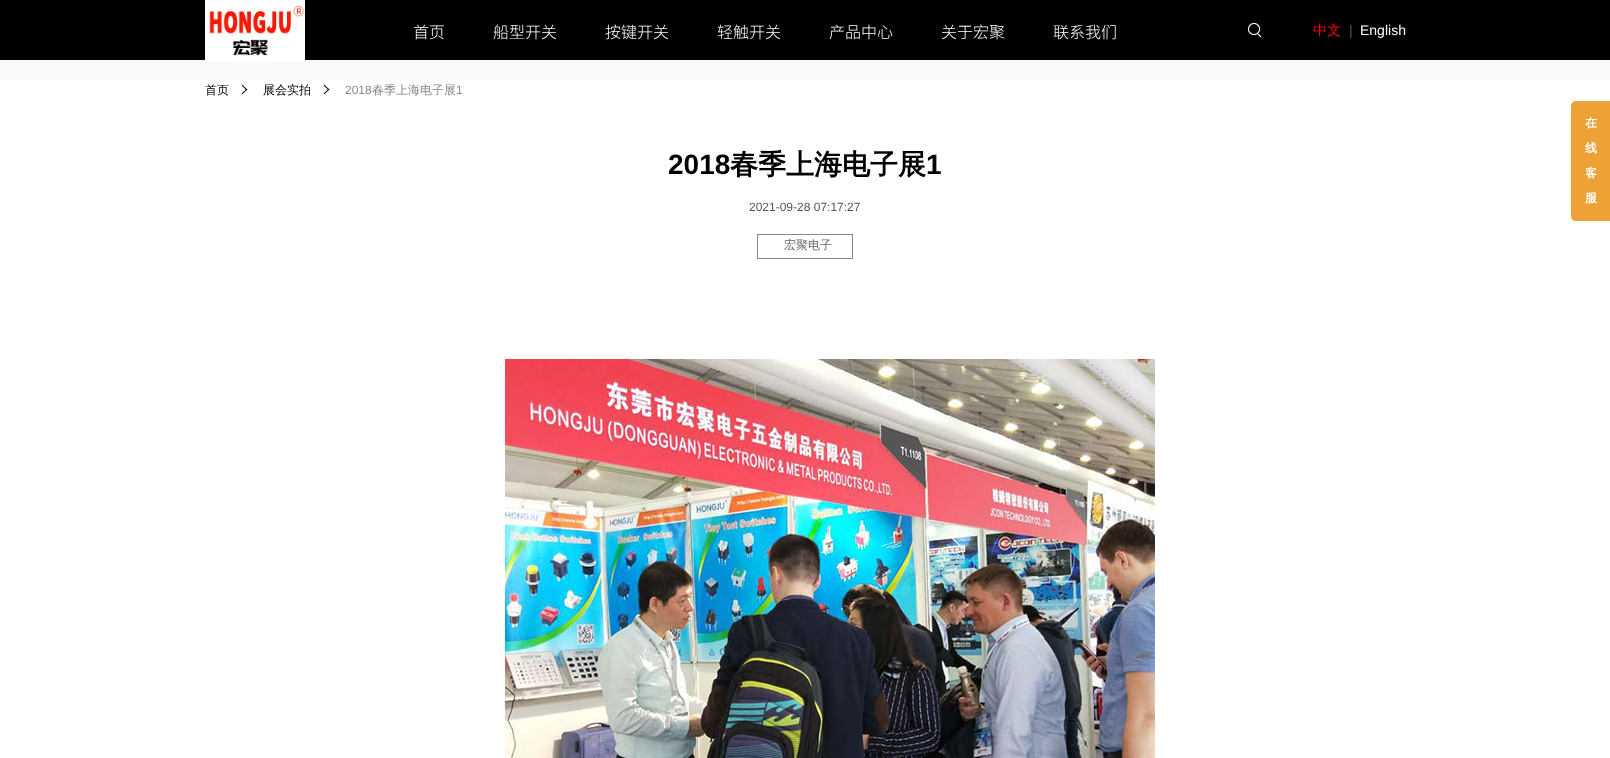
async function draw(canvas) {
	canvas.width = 1610;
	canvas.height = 758;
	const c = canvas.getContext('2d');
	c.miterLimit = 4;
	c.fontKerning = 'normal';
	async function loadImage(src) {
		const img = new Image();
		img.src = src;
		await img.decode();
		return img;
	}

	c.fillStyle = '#f9f9f9';
	c.fillRect(0, 0, 1610, 758);
	c.fillStyle = '#000';
	c.fillRect(0, 0, 1610, 60);
	c.drawImage(await loadImage('img1.png'), 205, 0, 100, 62);
	c.font = '300 16px Noto Sans SC';
	c.fillStyle = '#fff';
	for (const [text, x, y] of [
		['首页', 413, 38],
		['船型开关', 493, 38],
		['按键开关', 605, 38],
		['轻触开关', 717, 38],
		['产品中心', 829, 38],
		['关于宏聚', 941, 38],
		['联系我们', 1053, 38],
	]) {
		c.fillText(text, x, y);
	}
	c.drawImage(await loadImage('img2.png'), 1248, 23, 14, 15);
	c.font = '500 14px WenQuanYi Zen Hei';
	c.fillStyle = '#f00';
	c.fillText('中文', 1313, 35);
	c.font = '14px Liberation Sans';
	c.fillStyle = '#555';
	c.fillText('|', 1349, 35);
	c.fillStyle = '#fff';
	c.fillText('English', 1360, 35);
	c.fillRect(0, 80, 1610, 678);
	c.font = '500 12px WenQuanYi Zen Hei';
	c.fillStyle = '#000';
	c.fillText('首页', 205, 94);
	c.drawImage(await loadImage('img3.png'), 241, 84, 7, 11);
	c.fillText('展会实拍', 263, 94);
	c.drawImage(await loadImage('img3.png'), 323, 84, 7, 11);
	c.font = '12px Liberation Sans';
	c.fillStyle = '#888';
	c.fillText('2018', 345, 94);
	c.font = '500 12px WenQuanYi Zen Hei';
	c.fillText('春季上海电子展', 372, 94);
	c.font = '12px Liberation Sans';
	c.fillText('1', 456, 94);
	c.font = 'bold 28px Liberation Sans';
	c.fillStyle = '#000';
	c.fillText('2018', 668, 174);
	c.font = 'bold 28px WenQuanYi Zen Hei';
	c.fillText('春季上海电子展', 730, 174);
	c.font = 'bold 28px Liberation Sans';
	c.fillText('1', 926, 174);
	c.font = '12px Liberation Sans';
	c.fillStyle = '#555';
	c.fillText('2021-09-28 07:17:27', 749, 211);
	c.strokeStyle = '#888';
	c.strokeRect(757.5, 234.5, 95, 24);
	c.font = '500 12px WenQuanYi Zen Hei';
	c.fillStyle = '#666';
	c.fillText('宏聚电子', 784, 249);
	c.drawImage(await loadImage('img4.png'), 505, 359, 650, 399);
	c.fillStyle = '#eea236';
	c.beginPath();
	c.moveTo(1576, 101);
	c.lineTo(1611, 101);
	c.lineTo(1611, 221);
	c.lineTo(1576, 221);
	c.bezierCurveTo(1573, 221, 1571, 219, 1571, 216);
	c.lineTo(1571, 106);
	c.bezierCurveTo(1571, 103, 1573, 101, 1576, 101);
	c.closePath();
	c.fill();
	c.font = 'bold 12px WenQuanYi Zen Hei';
	c.fillStyle = '#fff';
	for (const [text, x, y] of [
		['在', 1585, 127],
		['线', 1585, 152],
		['客', 1585, 177],
		['服', 1585, 202],
	]) {
		c.fillText(text, x, y);
	}
}

draw(document.querySelector('canvas'));
